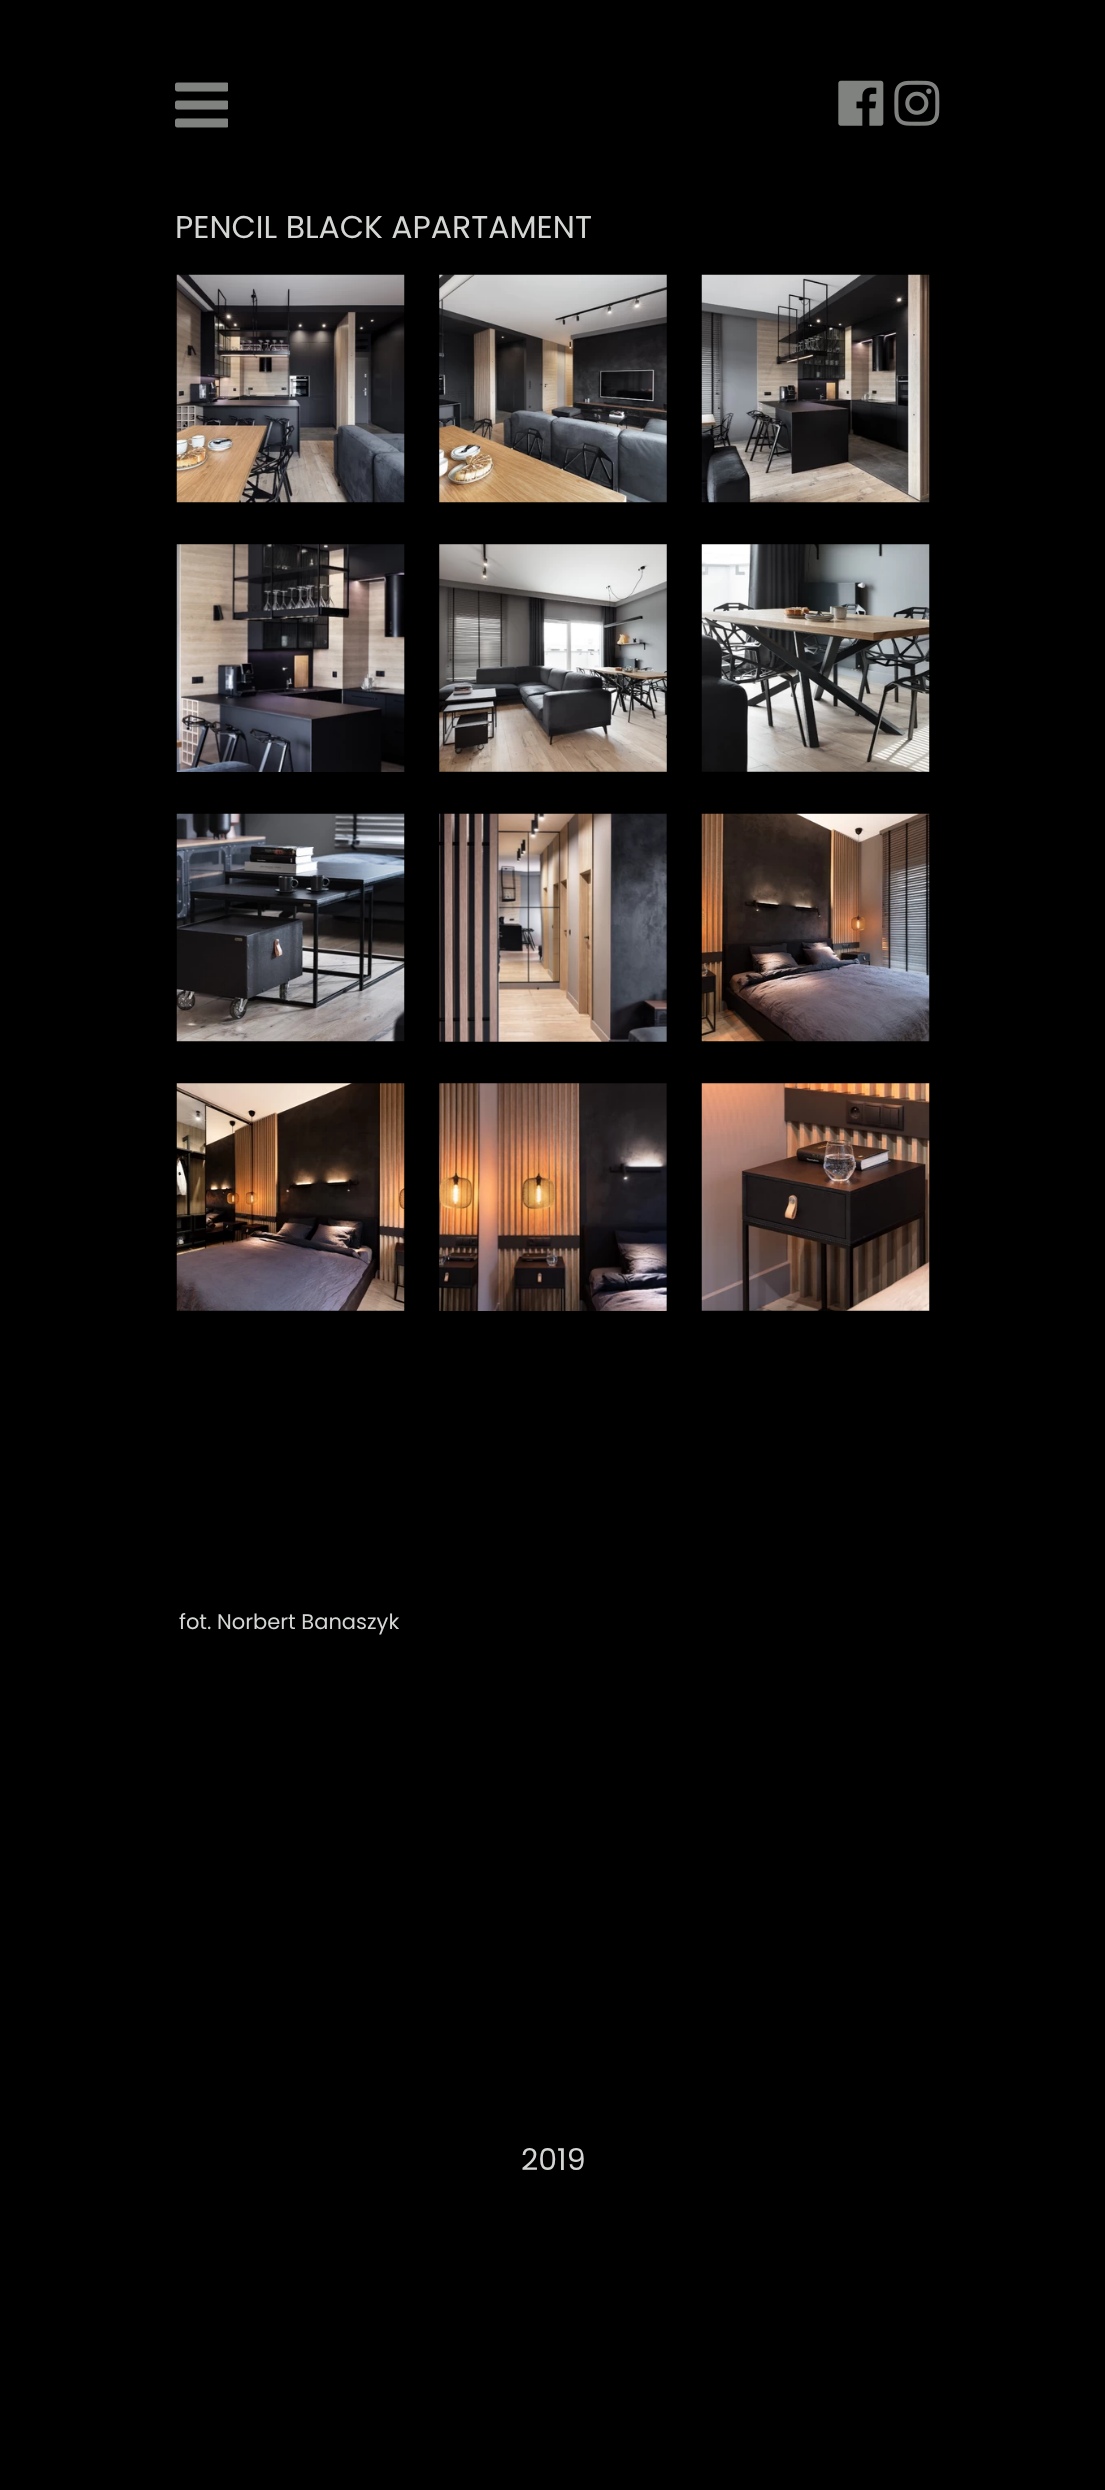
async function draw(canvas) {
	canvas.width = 1105;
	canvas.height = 2490;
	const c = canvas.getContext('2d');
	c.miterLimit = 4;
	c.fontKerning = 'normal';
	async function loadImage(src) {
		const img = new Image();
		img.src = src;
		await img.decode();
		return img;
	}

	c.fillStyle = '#000';
	c.fillRect(0, 0, 1105, 2490);
	c.drawImage(await loadImage('img1.png'), 175, 82, 53, 46);
	c.drawImage(await loadImage('img2.png'), 838, 80, 46, 46);
	c.drawImage(await loadImage('img3.png'), 894, 80, 46, 46);
	c.font = '31.5px Poppins';
	c.fillStyle = '#d3d6d3';
	c.fillText('PENCIL BLACK APARTAMENT', 175, 238);
	c.drawImage(await loadImage('img4.png'), 176, 274, 229, 229);
	c.drawImage(await loadImage('img5.png'), 439, 274, 228, 229);
	c.drawImage(await loadImage('img6.png'), 701, 274, 229, 229);
	c.drawImage(await loadImage('img7.png'), 176, 544, 229, 228);
	c.drawImage(await loadImage('img8.png'), 439, 544, 228, 228);
	c.drawImage(await loadImage('img9.png'), 701, 544, 229, 228);
	c.drawImage(await loadImage('img10.png'), 176, 813, 229, 229);
	c.drawImage(await loadImage('img11.png'), 439, 813, 228, 229);
	c.drawImage(await loadImage('img12.png'), 701, 813, 229, 229);
	c.drawImage(await loadImage('img13.png'), 176, 1083, 229, 228);
	c.drawImage(await loadImage('img14.png'), 439, 1083, 228, 228);
	c.drawImage(await loadImage('img15.png'), 701, 1083, 229, 228);
	c.font = '21px Poppins';
	c.fillText('fot. Norbert Banaszyk', 179, 1629);
	c.font = '30px Poppins';
	c.fillText('2019', 521, 2170);
}

draw(document.querySelector('canvas'));
